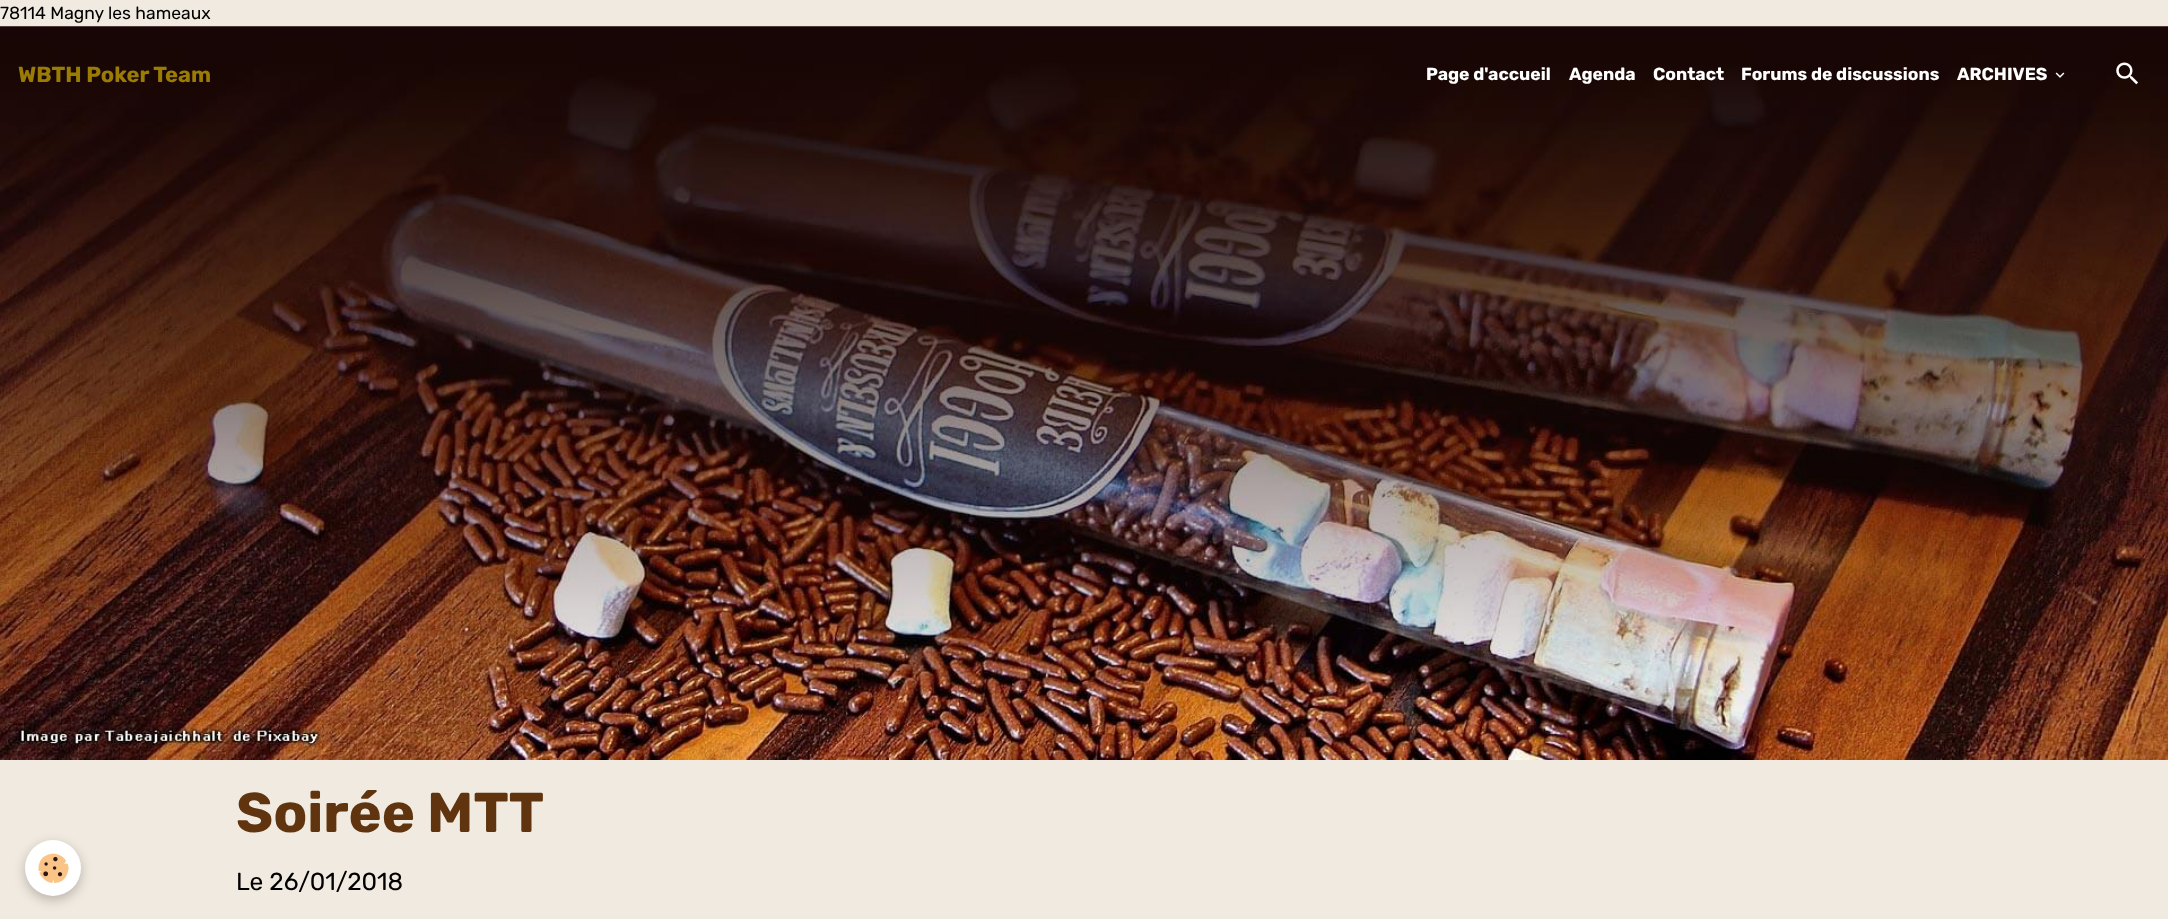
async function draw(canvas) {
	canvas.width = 2168;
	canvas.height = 919;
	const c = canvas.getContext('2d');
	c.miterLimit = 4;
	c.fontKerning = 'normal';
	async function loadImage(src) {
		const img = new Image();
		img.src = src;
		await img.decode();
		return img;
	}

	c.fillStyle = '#f1eae0';
	c.fillRect(0, 0, 2168, 919);
	c.font = '17.5px Rubik';
	c.fillStyle = '#000';
	c.fillText('78114 Magny les hameaux', 0, 19);
	c.drawImage(await loadImage('img1.png'), 0, 26, 2168, 734);
	c.font = 'bold 21.9px Rubik';
	c.fillStyle = '#9a7c04';
	c.fillText('WBTH Poker Team', 18, 82);
	c.font = 'bold 17.5px Rubik';
	c.fillStyle = '#fff';
	for (const [text, x, y] of [
		['Page d\'accueil', 1426, 80],
		['Agenda', 1569, 80],
		['Contact', 1653, 80],
		['Forums de discussions', 1741, 80],
		['ARCHIVES', 1957, 80],
	]) {
		c.fillText(text, x, y);
	}
	c.drawImage(await loadImage('img2.png'), 2055, 72, 10, 6);
	c.drawImage(await loadImage('img3.png'), 2116, 62, 22, 23);
	c.fillStyle = '#0000003d';
	c.filter = 'blur(6px)';
	c.beginPath();
	c.roundRect(25, 844, 56, 56, 28);
	c.fill();
	c.filter = 'none';
	c.fillStyle = '#fff';
	c.beginPath();
	c.arc(53, 868, 28, 0, 2 * Math.PI);
	c.fill();
	c.drawImage(await loadImage('img4.png'), 38, 853, 31, 30);
	c.font = 'bold 56px Rubik';
	c.fillStyle = '#60340f';
	c.fillText('Soirée MTT', 236, 832);
	c.font = '24.5px Rubik';
	c.fillStyle = '#000';
	c.fillText('Le 26/01/2018', 236, 890);
}

draw(document.querySelector('canvas'));
